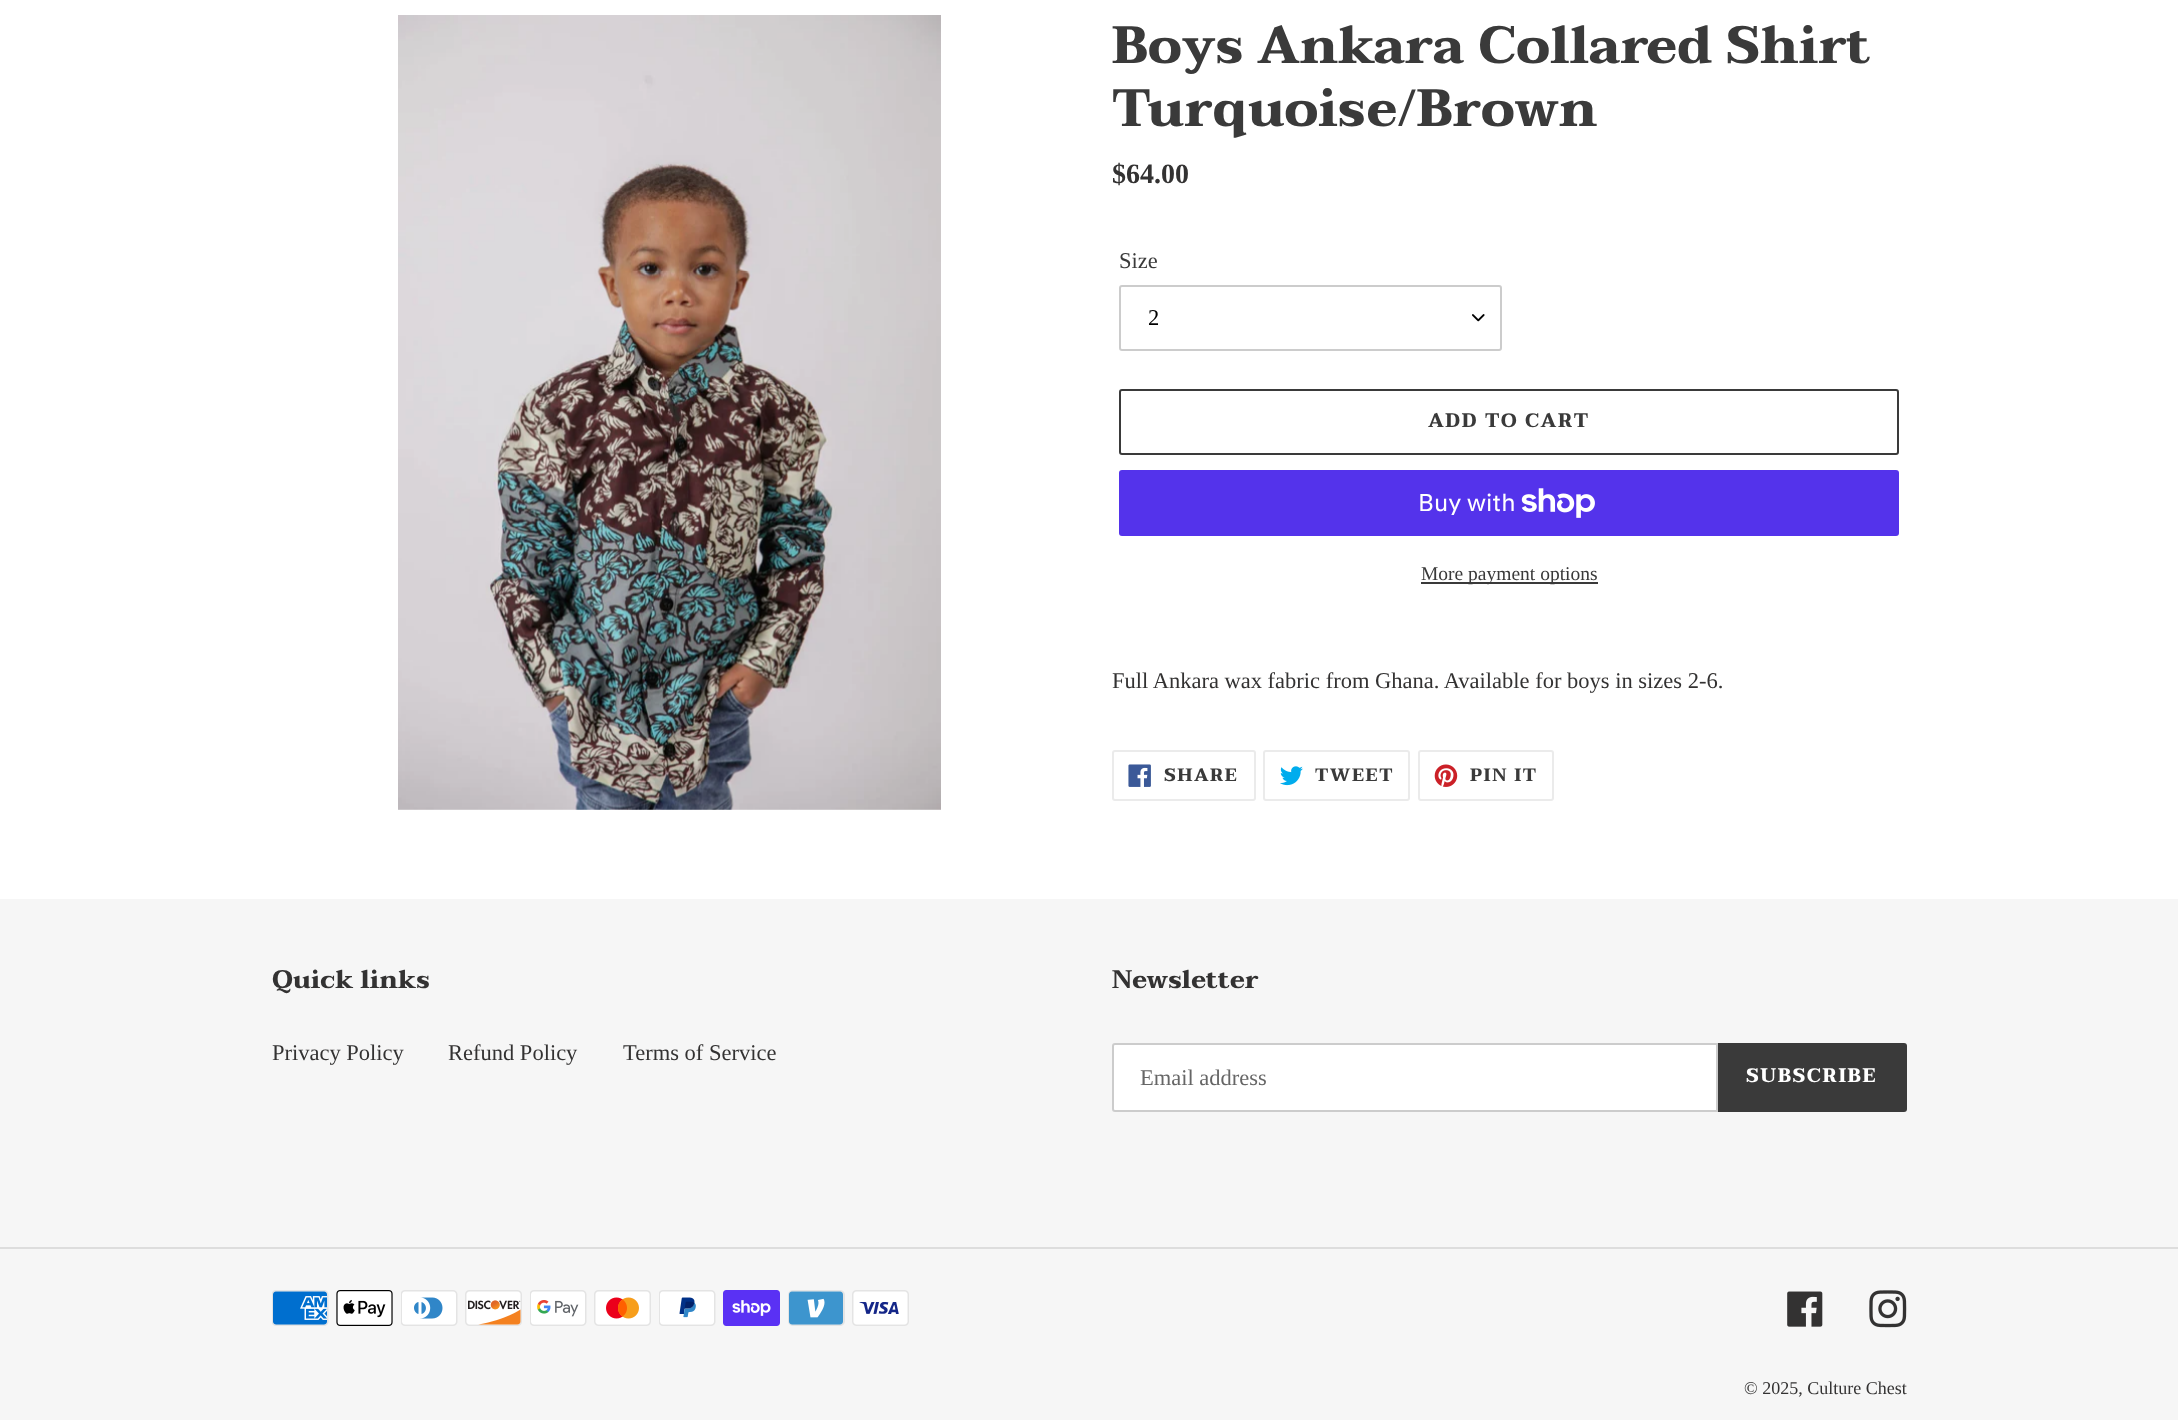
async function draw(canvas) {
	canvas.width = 2178;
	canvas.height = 1420;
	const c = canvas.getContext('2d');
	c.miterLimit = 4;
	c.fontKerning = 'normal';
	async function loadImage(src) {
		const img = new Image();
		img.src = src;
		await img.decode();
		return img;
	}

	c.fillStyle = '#fff';
	c.fillRect(0, 0, 2178, 1420);
	c.drawImage(await loadImage('img1.png'), 398, 15, 543, 795);
	c.font = 'bold 52.5px Taviraj';
	c.fillStyle = '#3a3a3a';
	c.fillText('Boys Ankara Collared Shirt', 1112, 63);
	c.fillText('Turquoise/Brown', 1112, 126);
	c.font = 'bold 28px Liberation Serif';
	c.fillStyle = '#333232';
	c.fillText('$64.00', 1112, 183);
	c.font = '22.5px Liberation Serif';
	c.fillStyle = '#3a3a3a';
	c.fillText('Size', 1119, 268);
	c.drawImage(await loadImage('img2.png'), 1472, 314, 13, 8);
	c.beginPath();
	c.roundRect(1120, 286, 381, 64, 2);
	c.strokeStyle = '#ccc';
	c.lineWidth = 2;
	c.stroke();
	c.fillStyle = '#000';
	c.fillText('2', 1148, 325);
	c.beginPath();
	c.roundRect(1120, 390, 778, 64, 2);
	c.strokeStyle = '#3a3a3a';
	c.stroke();
	c.letterSpacing = '1.5px';
	c.font = 'bold 19.5px Taviraj';
	c.fillStyle = '#3a3a3a';
	c.fillText('ADD TO CART', 1428, 427);
	c.fillStyle = '#5433eb';
	c.beginPath();
	c.roundRect(1119, 470, 780, 66, 3);
	c.fill();
	c.letterSpacing = '0px';
	c.font = '24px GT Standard';
	c.fillStyle = '#fff';
	c.fillText('Buy with', 1418, 511);
	c.drawImage(await loadImage('img3.png'), 1521, 488, 74, 30);
	c.fillStyle = '#3a3a3a';
	c.fillRect(1421, 582, 177, 2);
	c.font = '19.5px Liberation Serif';
	c.fillText('More payment options', 1421, 580);
	c.font = '22.5px Liberation Serif';
	c.fillStyle = '#333232';
	c.fillText('Full Ankara wax fabric from Ghana. Available for boys in sizes 2-6.', 1112, 688);
	c.beginPath();
	c.roundRect(1113, 751, 142, 49, 2);
	c.strokeStyle = '#ebebeb';
	c.stroke();
	c.drawImage(await loadImage('img4.png'), 1128, 764, 23, 23);
	c.letterSpacing = '1.5px';
	c.font = 'bold 18px Taviraj';
	c.fillStyle = '#3a3a3a';
	c.fillText('SHARE', 1164, 781);
	c.beginPath();
	c.roundRect(1264, 751, 145, 49, 2);
	c.stroke();
	c.drawImage(await loadImage('img5.png'), 1280, 766, 23, 20);
	c.fillText('TWEET', 1315, 781);
	c.beginPath();
	c.roundRect(1419, 751, 134, 49, 2);
	c.stroke();
	c.drawImage(await loadImage('img6.png'), 1434, 764, 24, 23);
	c.fillText('PIN IT', 1470, 781);
	c.fillStyle = '#f6f6f6';
	c.fillRect(0, 899, 2178, 521);
	c.letterSpacing = '0px';
	c.font = 'bold 25.5px Taviraj';
	c.fillStyle = '#333232';
	c.fillText('Quick links', 272, 988);
	c.font = '22.5px Liberation Serif';
	for (const [text, x, y] of [
		['Privacy Policy', 272, 1060],
		['Refund Policy', 448, 1060],
		['Terms of Service', 623, 1060],
	]) {
		c.fillText(text, x, y);
	}
	c.font = 'bold 25.5px Taviraj';
	c.fillText('Newsletter', 1112, 988);
	c.fillStyle = '#fff';
	c.beginPath();
	c.roundRect(1113, 1044, 604, 67, [2, 0, 0, 2]);
	c.fill();
	c.strokeStyle = '#ccc';
	c.stroke();
	c.font = '22.5px Liberation Serif';
	c.fillStyle = '#666';
	c.fillText('Email address', 1140, 1085);
	c.fillStyle = '#3a3a3a';
	c.beginPath();
	c.roundRect(1718, 1043, 189, 69, [0, 3, 3, 0]);
	c.fill();
	c.letterSpacing = '1.5px';
	c.font = 'bold 19.5px Taviraj';
	c.fillStyle = '#fff';
	c.fillText('SUBSCRIBE', 1746, 1082);
	c.fillStyle = '#ddd';
	c.fillRect(0, 1247, 2178, 2);
	c.drawImage(await loadImage('img7.png'), 272, 1290, 57, 36);
	c.drawImage(await loadImage('img8.png'), 336, 1290, 57, 36);
	c.drawImage(await loadImage('img9.png'), 401, 1290, 57, 36);
	c.drawImage(await loadImage('img10.png'), 465, 1290, 57, 36);
	c.drawImage(await loadImage('img11.png'), 530, 1290, 57, 36);
	c.drawImage(await loadImage('img12.png'), 594, 1290, 57, 36);
	c.drawImage(await loadImage('img13.png'), 659, 1290, 57, 36);
	c.drawImage(await loadImage('img14.png'), 723, 1290, 57, 36);
	c.drawImage(await loadImage('img15.png'), 788, 1290, 57, 36);
	c.drawImage(await loadImage('img16.png'), 852, 1290, 57, 36);
	c.drawImage(await loadImage('img17.png'), 1787, 1291, 36, 36);
	c.drawImage(await loadImage('img18.png'), 1869, 1290, 38, 38);
	c.letterSpacing = '0px';
	c.font = '18px Liberation Serif';
	c.fillStyle = '#333232';
	c.fillText('© 2025, Culture Chest', 1744, 1394);
}

draw(document.querySelector('canvas'));
